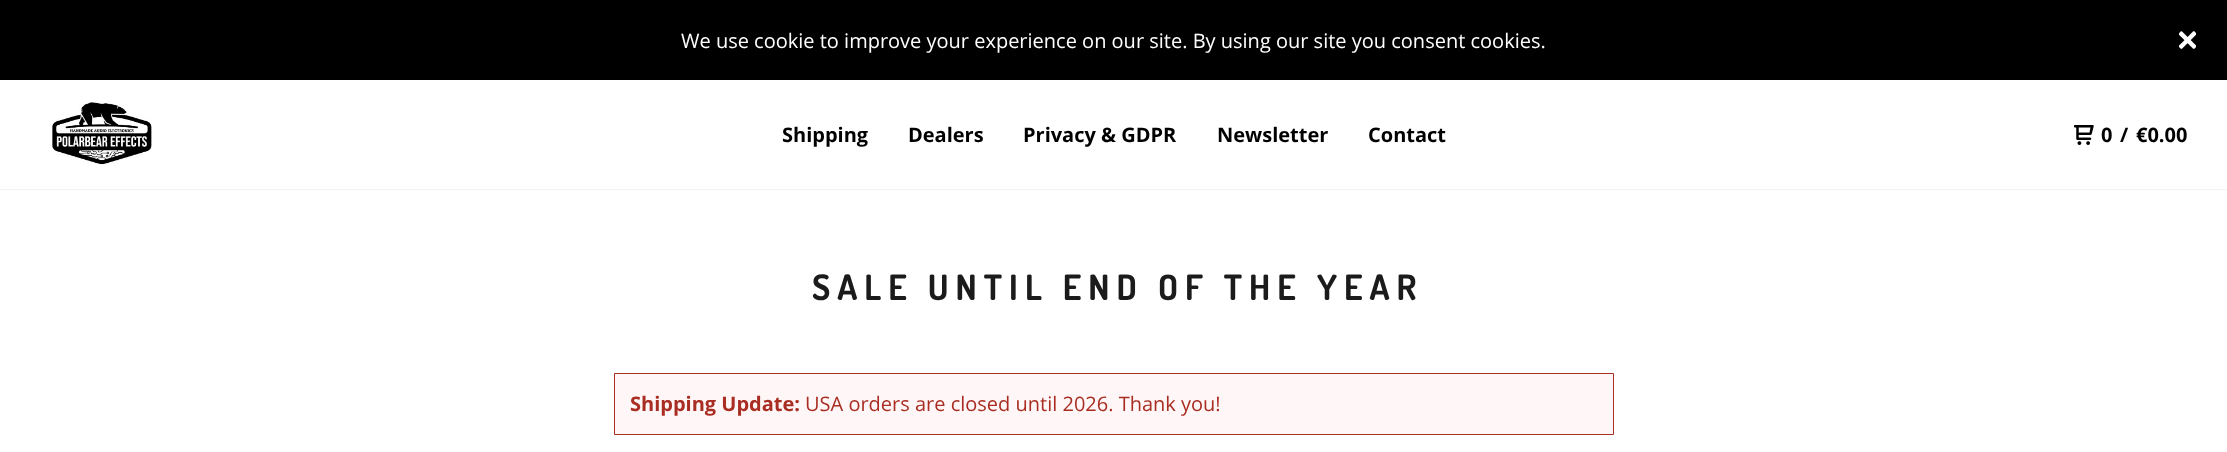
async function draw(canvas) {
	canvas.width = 2227;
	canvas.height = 452;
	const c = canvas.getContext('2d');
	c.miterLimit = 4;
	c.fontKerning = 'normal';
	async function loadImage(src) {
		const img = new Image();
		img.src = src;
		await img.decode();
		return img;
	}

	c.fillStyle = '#fff';
	c.fillRect(0, 0, 2227, 452);
	c.fillStyle = '#000';
	c.fillRect(0, 0, 2227, 80);
	c.font = '20px Open Sans';
	c.fillStyle = '#fff';
	c.fillText('We use cookie to improve your experience on our site. By using our site you consent cookies.', 681, 48);
	c.drawImage(await loadImage('img1.png'), 2179, 31, 17, 18);
	c.fillStyle = '#f2f2f2';
	c.fillRect(0, 189, 2227, 1);
	c.drawImage(await loadImage('img2.png'), 52, 102, 100, 63);
	c.font = 'bold 20px Open Sans';
	c.fillStyle = '#000';
	for (const [text, x, y] of [
		['Shipping', 782, 142],
		['Dealers', 908, 142],
		['Privacy & GDPR', 1023, 142],
		['Newsletter', 1217, 142],
		['Contact', 1368, 142],
	]) {
		c.fillText(text, x, y);
	}
	c.drawImage(await loadImage('img3.png'), 2074, 125, 20, 20);
	for (const [text, x, y] of [
		['0', 2101, 142],
		['/', 2120, 142],
		['€0.00', 2136, 142],
	]) {
		c.fillText(text, x, y);
	}
	c.letterSpacing = '7px';
	c.font = 'bold 35px Dosis';
	c.fillStyle = '#1b1b1b';
	c.fillText('SALE UNTIL END OF THE YEAR', 812, 300);
	c.fillStyle = '#fff7f7';
	c.beginPath();
	c.rect(614.5, 373.5, 999, 61);
	c.fill();
	c.strokeStyle = '#a92d22';
	c.stroke();
	c.letterSpacing = '0px';
	c.font = 'bold 20px Open Sans';
	c.fillStyle = '#a92d22';
	c.fillText('Shipping Update:', 630, 411);
	c.font = '20px Open Sans';
	c.fillText('USA orders are closed until 2026. Thank you!', 805, 411);
}

draw(document.querySelector('canvas'));
